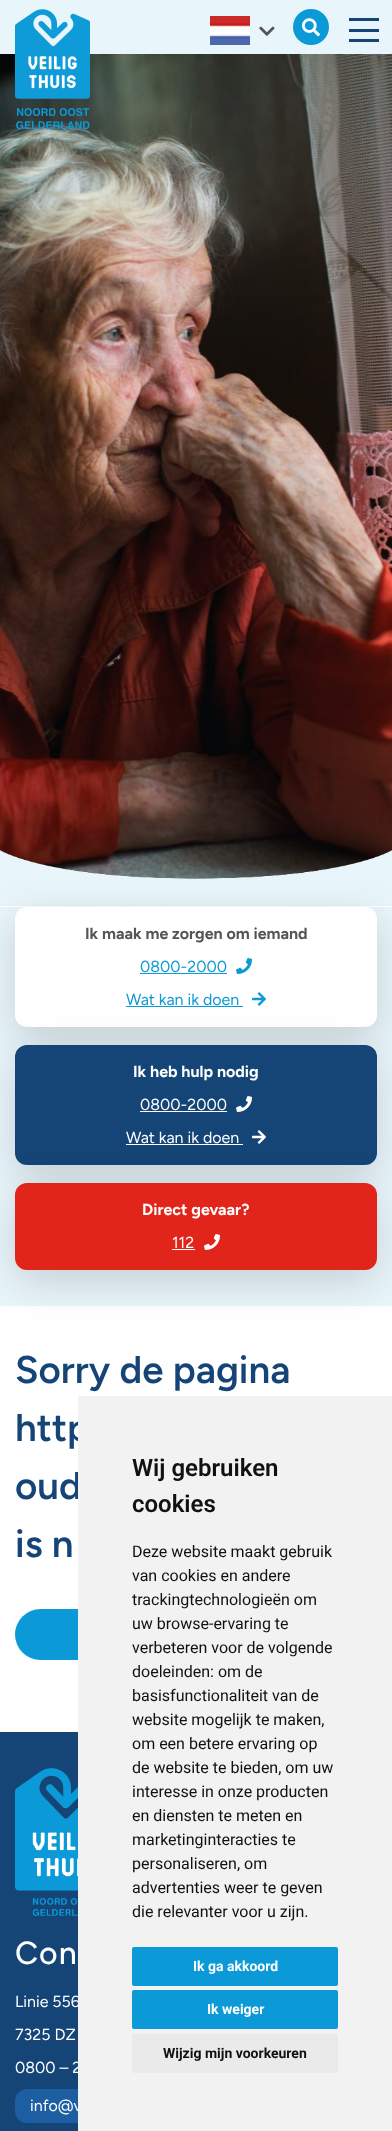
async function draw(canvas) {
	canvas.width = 392;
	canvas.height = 2131;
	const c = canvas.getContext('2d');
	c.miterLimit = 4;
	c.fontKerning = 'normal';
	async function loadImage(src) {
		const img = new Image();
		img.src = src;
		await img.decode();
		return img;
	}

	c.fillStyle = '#fff';
	c.fillRect(0, 0, 392, 2131);
	c.fillStyle = '#e8f5fa';
	c.fillRect(0, 0, 392, 54);
	c.drawImage(await loadImage('img5.png'), 0, 54, 392, 852);
	c.drawImage(await loadImage('img1.png'), 15, 9, 75, 121);
	c.drawImage(await loadImage('img2.png'), 210, 16, 40, 29);
	c.drawImage(await loadImage('img3.png'), 259, 26, 16, 10);
	c.fillStyle = '#0b9ad7';
	c.beginPath();
	c.arc(311, 27, 18, 0, 2 * Math.PI);
	c.fill();
	c.drawImage(await loadImage('img4.png'), 302, 18, 18, 19);
	for (const [x, y, w, h, color] of [
		[349, 18, 30, 3, '#154577'],
		[349, 29, 30, 3, '#154577'],
		[349, 39, 30, 3, '#154577'],
	]) {
		c.fillStyle = color;
		c.fillRect(x, y, w, h);
	}
	c.drawImage(await loadImage('img6.png'), 0, 850, 392, 56);
	c.fillStyle = '#e8f5fa';
	c.fillRect(0, 907, 392, 399);
	c.fillStyle = '#00000026';
	c.filter = 'blur(20px)';
	c.beginPath();
	c.roundRect(15, 919, 362, 120, 12);
	c.fill();
	c.filter = 'none';
	c.fillStyle = '#fff';
	c.beginPath();
	c.roundRect(15, 907, 362, 120, 12);
	c.fill();
	c.font = 'bold 16px Figtree';
	c.fillStyle = '#555';
	c.fillText('Ik maak me zorgen om iemand', 85, 939);
	c.font = '16px Figtree';
	c.fillStyle = '#0b9ad7';
	c.fillText('0800-2000', 140, 972);
	c.fillRect(140, 973, 87, 1);
	c.drawImage(await loadImage('img7.png'), 236, 958, 16, 16);
	c.fillText('Wat kan ik doen', 126, 1005);
	c.fillRect(126, 1006, 117, 1);
	c.drawImage(await loadImage('img8.png'), 252, 992, 14, 14);
	c.fillStyle = '#00000026';
	c.filter = 'blur(20px)';
	c.beginPath();
	c.roundRect(15, 1057, 362, 120, 12);
	c.fill();
	c.filter = 'none';
	c.fillStyle = '#154577';
	c.beginPath();
	c.roundRect(15, 1045, 362, 120, 12);
	c.fill();
	c.font = 'bold 16px Figtree';
	c.fillStyle = '#fff';
	c.fillText('Ik heb hulp nodig', 133, 1077);
	c.font = '16px Figtree';
	c.fillText('0800-2000', 140, 1110);
	c.fillRect(140, 1111, 87, 1);
	c.drawImage(await loadImage('img9.png'), 236, 1096, 16, 16);
	c.fillText('Wat kan ik doen', 126, 1143);
	c.fillRect(126, 1144, 117, 1);
	c.drawImage(await loadImage('img10.png'), 252, 1130, 14, 14);
	c.fillStyle = '#00000026';
	c.filter = 'blur(20px)';
	c.beginPath();
	c.roundRect(15, 1195, 362, 87, 12);
	c.fill();
	c.filter = 'none';
	c.fillStyle = '#e1251b';
	c.beginPath();
	c.roundRect(15, 1183, 362, 87, 12);
	c.fill();
	c.font = 'bold 16px Figtree';
	c.fillStyle = '#fff';
	c.fillText('Direct gevaar?', 142, 1215);
	c.font = '16px Figtree';
	c.fillText('112', 172, 1248);
	c.fillRect(172, 1249, 23, 1);
	c.drawImage(await loadImage('img11.png'), 204, 1234, 16, 16);
	c.font = '600 38.5px Figtree';
	c.fillStyle = '#154577';
	for (const [text, x, y] of [
		['Sorry de pagina', 15, 1383],
		['http', 15, 1441],
		['oud', 15, 1499],
		['is n', 15, 1557],
	]) {
		c.fillText(text, x, y);
	}
	c.fillStyle = '#0b9ad7';
	c.beginPath();
	c.roundRect(15, 1609, 315, 51, 25.5);
	c.fill();
	c.fillStyle = '#154577';
	c.fillRect(0, 1732, 78, 399);
	c.drawImage(await loadImage('img12.png'), 15, 1768, 63, 148);
	c.letterSpacing = '1px';
	c.font = '500 32px Figtree';
	c.fillStyle = '#fff';
	c.fillText('Con', 15, 1964);
	c.letterSpacing = '0px';
	c.font = '16px Figtree';
	for (const [text, x, y] of [
		['Linie 556', 15, 2007],
		['7325 DZ', 15, 2040],
		['0800 – 2', 15, 2073],
	]) {
		c.fillText(text, x, y);
	}
	c.fillStyle = '#1d5ea2';
	c.beginPath();
	c.roundRect(15, 2089, 200, 34, 12);
	c.fill();
	c.fillStyle = '#fff';
	c.fillText('info@v', 30, 2111);
	c.fillStyle = '#f2f2f2';
	c.fillRect(78, 1396, 314, 735);
	c.font = '600 24px Roboto';
	c.fillStyle = '#111';
	c.fillText('Wij gebruiken', 132, 1476);
	c.fillText('cookies', 132, 1512);
	c.font = '16px Roboto';
	for (const [text, x, y] of [
		['Deze website maakt gebruik', 132, 1557],
		['van cookies en andere', 132, 1581],
		['trackingtechnologieën om', 132, 1605],
		['uw browse-ervaring te', 132, 1629],
		['verbeteren voor de volgende', 132, 1653],
		['doeleinden: om de', 132, 1677],
		['basisfunctionaliteit van de', 132, 1701],
		['website mogelijk te maken,', 132, 1725],
		['om een betere ervaring op', 132, 1749],
		['de website te bieden, om uw', 132, 1773],
		['interesse in onze producten', 132, 1797],
		['en diensten te meten en', 132, 1821],
		['marketinginteracties te', 132, 1845],
		['personaliseren, om', 132, 1869],
		['advertenties weer te geven', 132, 1893],
		['die relevanter voor u zijn.', 132, 1917],
	]) {
		c.fillText(text, x, y);
	}
	c.fillStyle = '#0b9ad7';
	c.beginPath();
	c.roundRect(132, 1947, 206, 39, 2);
	c.fill();
	c.font = 'bold 14px Roboto';
	c.fillStyle = '#fff';
	c.fillText('Ik ga akkoord', 193, 1971);
	c.fillStyle = '#0b9ad7';
	c.beginPath();
	c.roundRect(132, 1990, 206, 39, 2);
	c.fill();
	c.fillStyle = '#fff';
	c.fillText('Ik weiger', 207, 2014);
	c.fillStyle = '#eaeaea';
	c.beginPath();
	c.roundRect(132, 2034, 206, 39, 2);
	c.fill();
	c.fillStyle = '#111';
	c.fillText('Wijzig mijn voorkeuren', 163, 2058);
}

draw(document.querySelector('canvas'));
